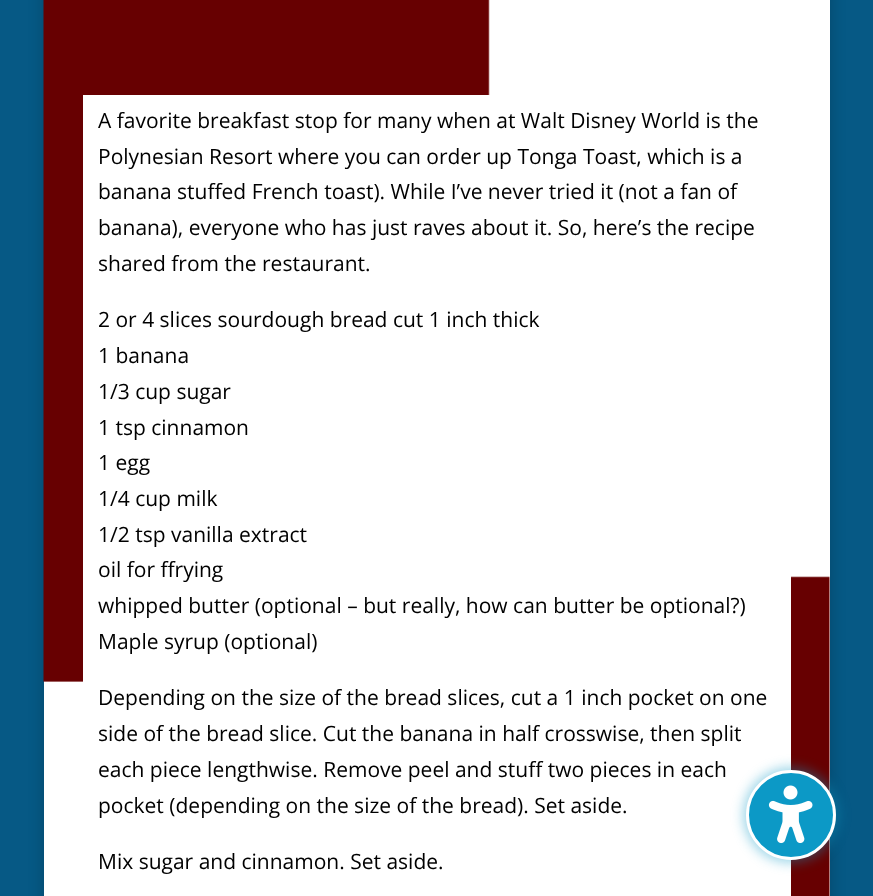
async function draw(canvas) {
	canvas.width = 873;
	canvas.height = 896;
	const c = canvas.getContext('2d');
	c.miterLimit = 4;
	c.fontKerning = 'normal';
	async function loadImage(src) {
		const img = new Image();
		img.src = src;
		await img.decode();
		return img;
	}

	c.fillStyle = '#065985';
	c.fillRect(0, 0, 873, 896);
	c.fillStyle = '#00000033';
	c.filter = 'blur(7.5px)';
	c.beginPath();
	c.rect(44, -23, 786, 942);
	c.fill();
	c.filter = 'none';
	c.fillStyle = '#fff';
	c.fillRect(44, 0, 786, 896);
	c.drawImage(await loadImage('img1.png'), 43, 0, 787, 896);
	c.fillRect(83, 95, 708, 801);
	c.font = '21px Open Sans';
	c.fillStyle = '#000';
	for (const [text, x, y] of [
		['A favorite breakfast stop for many when at Walt Disney World is the', 98, 128],
		['Polynesian Resort where you can order up Tonga Toast, which is a', 98, 164],
		['banana stuffed French toast). While I’ve never tried it (not a fan of', 98, 199],
		['banana), everyone who has just raves about it. So, here’s the recipe', 98, 235],
		['shared from the restaurant.', 98, 271],
		['2 or 4 slices sourdough bread cut 1 inch thick', 98, 327],
		['1 banana', 98, 363],
		['1/3 cup sugar', 98, 399],
		['1 tsp cinnamon', 98, 435],
		['1 egg', 98, 470],
		['1/4 cup milk', 98, 506],
		['1/2 tsp vanilla extract', 98, 542],
		['oil for ffrying', 98, 577],
		['whipped butter (optional – but really, how can butter be optional?)', 98, 613],
		['Maple syrup (optional)', 98, 649],
		['Depending on the size of the bread slices, cut a 1 inch pocket on one', 98, 705],
		['side of the bread slice. Cut the banana in half crosswise, then split', 98, 741],
		['each piece lengthwise. Remove peel and stuff two pieces in each', 98, 777],
		['pocket (depending on the size of the bread). Set aside.', 98, 813],
		['Mix sugar and cinnamon. Set aside.', 98, 869],
	]) {
		c.fillText(text, x, y);
	}
	c.fillStyle = '#0c99c666';
	c.filter = 'blur(6px)';
	c.beginPath();
	c.roundRect(743, 767, 96, 96, 48);
	c.fill();
	c.filter = 'none';
	c.fillStyle = '#0c99c6';
	c.beginPath();
	c.arc(791, 815, 43.5, 0, 2 * Math.PI);
	c.fill();
	c.strokeStyle = '#fff';
	c.lineWidth = 3;
	c.stroke();
	c.drawImage(await loadImage('img2.png'), 768, 785, 45, 59);
}

draw(document.querySelector('canvas'));
